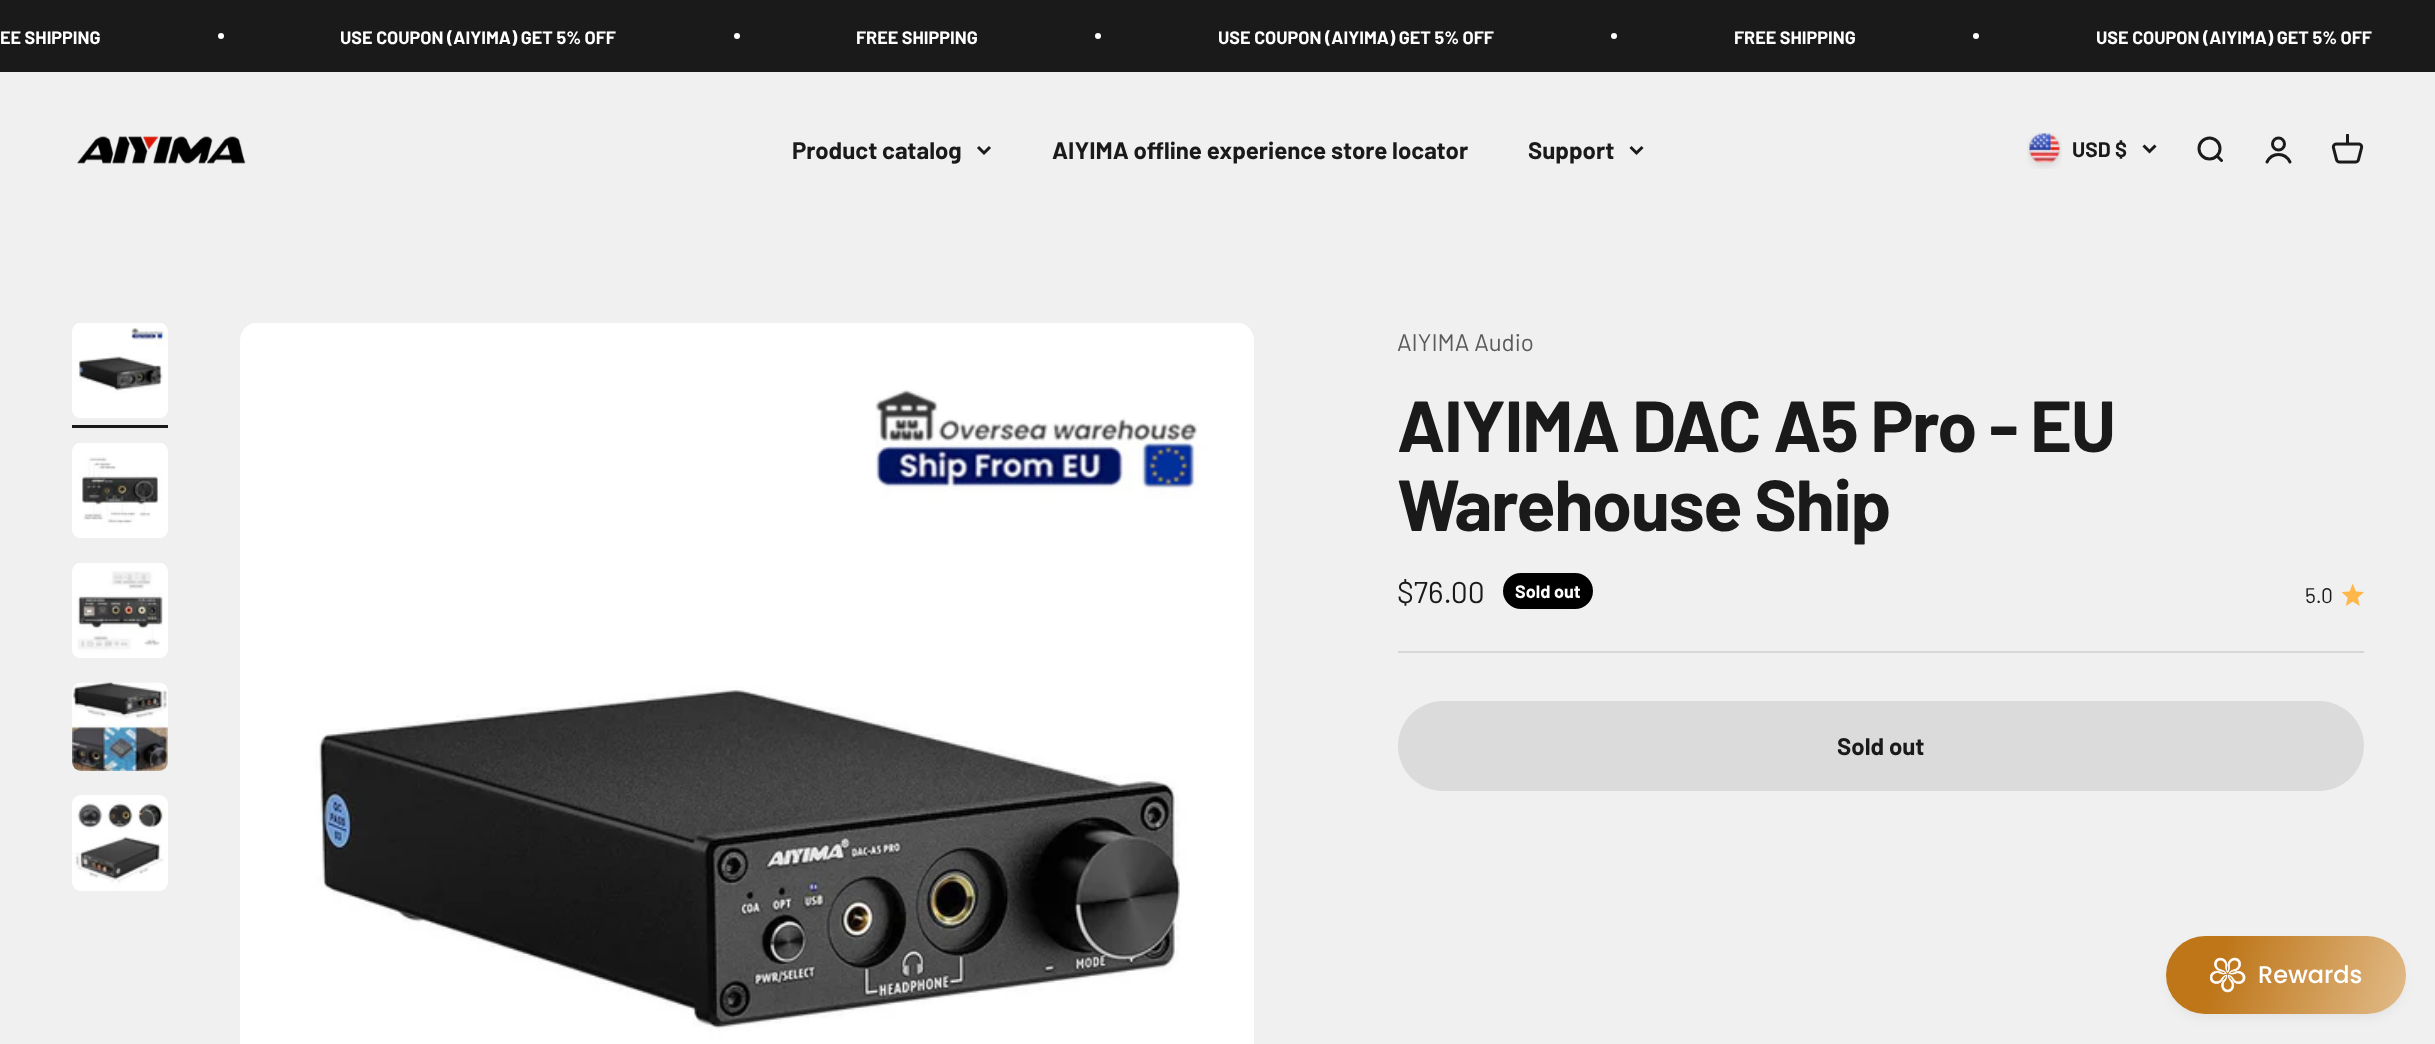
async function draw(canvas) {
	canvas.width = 2435;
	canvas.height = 1044;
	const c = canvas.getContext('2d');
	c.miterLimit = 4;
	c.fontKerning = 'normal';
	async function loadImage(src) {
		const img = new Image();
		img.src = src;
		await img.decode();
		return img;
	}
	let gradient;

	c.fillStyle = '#f0f0f0';
	c.fillRect(0, 0, 2435, 1044);
	c.fillStyle = '#1a1a1a';
	c.fillRect(0, 0, 2435, 72);
	c.font = 'bold 18px Barlow';
	c.fillStyle = '#fff';
	c.fillText('EE SHIPPING', 0, 44);
	c.beginPath();
	c.arc(221, 36, 3, 0, 2 * Math.PI);
	c.fill();
	c.fillText('USE COUPON (AIYIMA) GET 5% OFF', 340, 44);
	c.beginPath();
	c.arc(737, 36, 3, 0, 2 * Math.PI);
	c.fill();
	c.fillText('FREE SHIPPING', 856, 44);
	c.beginPath();
	c.arc(1098, 36, 3, 0, 2 * Math.PI);
	c.fill();
	c.fillText('USE COUPON (AIYIMA) GET 5% OFF', 1218, 44);
	c.beginPath();
	c.arc(1614, 36, 3, 0, 2 * Math.PI);
	c.fill();
	c.fillText('FREE SHIPPING', 1734, 44);
	c.beginPath();
	c.arc(1976, 36, 3, 0, 2 * Math.PI);
	c.fill();
	c.fillText('USE COUPON (AIYIMA) GET 5% OFF', 2096, 44);
	c.drawImage(await loadImage('img1.png'), 77, 136, 169, 28);
	c.font = 'bold 24px Barlow';
	c.fillStyle = '#1a1a1a';
	c.fillText('Product catalog', 792, 159);
	c.beginPath();
	c.moveTo(978, 147);
	c.lineTo(984, 153);
	c.lineTo(990, 147);
	c.strokeStyle = '#1a1a1a';
	c.lineWidth = 3;
	c.stroke();
	c.fillText('AIYIMA offline experience store locator', 1052, 159);
	c.fillText('Support', 1528, 159);
	c.beginPath();
	c.moveTo(1630.5, 147);
	c.lineTo(1636.5, 153);
	c.lineTo(1642.5, 147);
	c.stroke();
	c.drawImage(await loadImage('img2.png'), 2027, 133, 35, 36);
	c.font = 'bold 21px Barlow';
	c.fillText('USD $', 2072, 157);
	c.beginPath();
	c.moveTo(2143.5, 145.5);
	c.lineTo(2149.5, 151.5);
	c.lineTo(2155.5, 145.5);
	c.stroke();
	c.beginPath();
	c.arc(2209.5, 148.5, 10.5, 0, 2 * Math.PI);
	c.stroke();
	c.beginPath();
	c.moveTo(2217, 156);
	c.lineTo(2221.5, 160.5);
	c.lineCap = 'round';
	c.lineJoin = 'round';
	c.stroke();
	c.beginPath();
	c.arc(2278.5, 144, 6, 0, 2 * Math.PI);
	c.stroke();
	c.beginPath();
	c.moveTo(2267, 162);
	c.bezierCurveTo(2272, 152, 2285, 152, 2290, 162);
	c.lineJoin = 'miter';
	c.stroke();
	c.drawImage(await loadImage('img3.png'), 2331, 134, 33, 30);
	c.drawImage(await loadImage('img4.png'), 72, 323, 96, 95);
	c.fillRect(72, 425, 96, 3);
	c.drawImage(await loadImage('img5.png'), 72, 443, 96, 95);
	c.drawImage(await loadImage('img6.png'), 72, 563, 96, 95);
	c.drawImage(await loadImage('img7.png'), 72, 682, 96, 89);
	c.drawImage(await loadImage('img8.png'), 72, 795, 96, 96);
	c.drawImage(await loadImage('img9.png'), 240, 323, 1014, 721);
	c.font = '24px Barlow';
	c.fillStyle = '#5a5a5a';
	c.fillText('AIYIMA Audio', 1397, 351);
	c.letterSpacing = '-1.4px';
	c.font = 'bold 72px Barlow';
	c.fillStyle = '#1a1a1a';
	c.fillText('AIYIMA DAC A5 Pro - EU', 1397, 452);
	c.fillText('Warehouse Ship', 1397, 531);
	c.letterSpacing = '0px';
	c.font = '30px Barlow';
	c.fillText('$76.00', 1397, 603);
	c.fillStyle = '#000';
	c.beginPath();
	c.roundRect(1503, 573, 90, 36, 18);
	c.fill();
	c.font = 'bold 18px Barlow';
	c.fillStyle = '#fff';
	c.fillText('Sold out', 1515, 598);
	c.font = '21px Barlow';
	c.fillStyle = '#1a1a1a';
	c.fillText('5.0', 2305, 603);
	c.drawImage(await loadImage('img10.png'), 2342, 584, 22, 22);
	c.fillStyle = '#d6d6d6';
	c.fillRect(1398, 651, 966, 2);
	c.fillStyle = '#dbdbdb';
	c.beginPath();
	c.roundRect(1398, 701, 966, 90, 45);
	c.fill();
	c.font = 'bold 24px Barlow';
	c.fillStyle = '#1a1a1a';
	c.fillText('Sold out', 1837, 755);
	c.fillStyle = '#44444414';
	c.filter = 'blur(6px)';
	c.beginPath();
	c.roundRect(2169, 945, 234, 72, 36);
	c.fill();
	c.filter = 'none';
	gradient = c.createLinearGradient(2167, 933, 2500, 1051);
	gradient.addColorStop(0.17, '#be7619');
	gradient.addColorStop(1, '#f5e1c6');
	c.fillStyle = gradient;
	c.beginPath();
	c.roundRect(2166, 936, 240, 78, 39);
	c.fill();
	c.drawImage(await loadImage('img11.png'), 2210, 957, 36, 36);
	c.font = '500 24px Poppins';
	c.fillStyle = '#fff';
	c.fillText('Rewards', 2258, 983);
}

draw(document.querySelector('canvas'));
